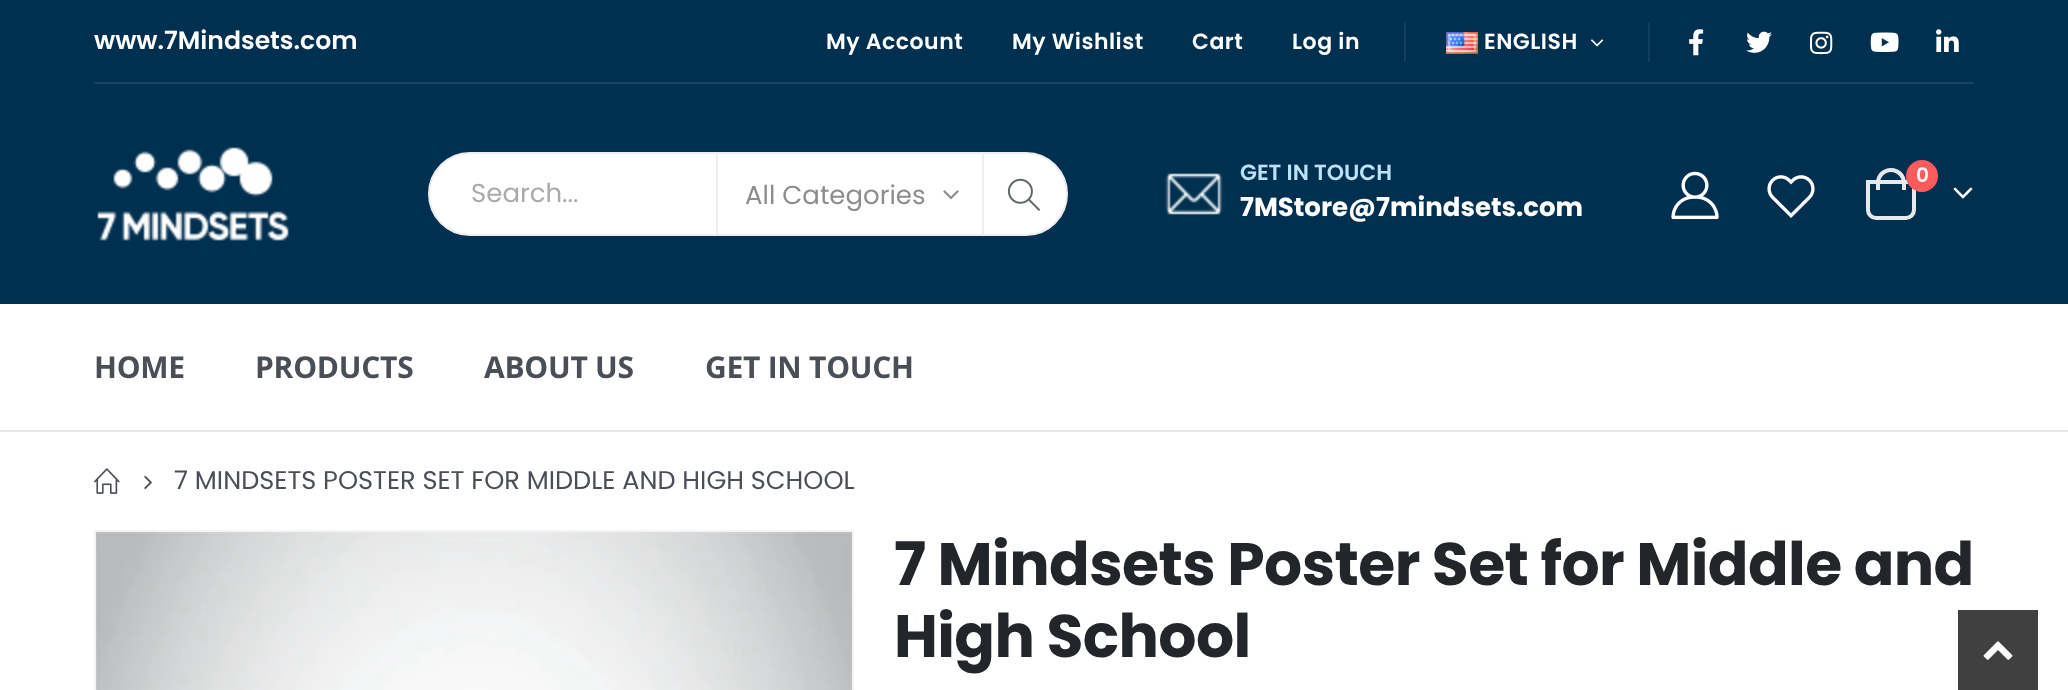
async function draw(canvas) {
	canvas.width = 2068;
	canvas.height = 690;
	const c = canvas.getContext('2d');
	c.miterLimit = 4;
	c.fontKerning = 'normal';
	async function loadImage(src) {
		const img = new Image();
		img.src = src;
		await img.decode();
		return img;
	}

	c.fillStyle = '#fff';
	c.fillRect(0, 0, 2068, 690);
	for (const [x, y, w, h, color] of [
		[0, 0, 2068, 304, '#003050'],
		[0, 430, 2068, 2, '#e7e7e7'],
		[94, 82, 1880, 2, '#194461'],
	]) {
		c.fillStyle = color;
		c.fillRect(x, y, w, h);
	}
	c.font = '600 25.1px Poppins';
	c.fillStyle = '#fff';
	c.fillText('www.7Mindsets.com', 94, 49);
	c.letterSpacing = '0.5px';
	c.font = '600 22px Poppins';
	for (const [text, x, y] of [
		['My Account', 826, 49],
		['My Wishlist', 1012, 49],
		['Cart', 1192, 49],
		['Log in', 1292, 49],
	]) {
		c.fillText(text, x, y);
	}
	c.fillStyle = '#123f5d';
	c.fillRect(1404, 22, 2, 40);
	c.drawImage(await loadImage('img1.png'), 1446, 32, 32, 22);
	c.fillStyle = '#fff';
	c.fillText('ENGLISH', 1484, 49);
	c.drawImage(await loadImage('img2.png'), 1591, 39, 13, 8);
	c.fillStyle = '#123f5d';
	c.fillRect(1648, 22, 2, 40);
	c.drawImage(await loadImage('img3.png'), 1689, 29, 15, 27);
	c.drawImage(await loadImage('img4.png'), 1746, 31, 26, 22);
	c.drawImage(await loadImage('img5.png'), 1810, 31, 23, 24);
	c.drawImage(await loadImage('img6.png'), 1870, 32, 29, 20);
	c.drawImage(await loadImage('img7.png'), 1936, 29, 23, 23);
	c.drawImage(await loadImage('img8.png'), 97, 147, 192, 94);
	c.fillStyle = '#fff';
	c.beginPath();
	c.roundRect(429, 153, 638, 82, 41);
	c.fill();
	c.strokeStyle = '#eee';
	c.lineWidth = 2;
	c.stroke();
	c.letterSpacing = '0px';
	c.font = '26px Poppins';
	c.fillStyle = '#aaa';
	c.fillText('Search...', 471, 202);
	c.fillStyle = '#eee';
	c.fillRect(982, 154, 2, 80);
	c.fillRect(716, 154, 2, 80);
	c.fillStyle = '#8d8d8d';
	c.fillText('All Categories', 745, 204);
	c.drawImage(await loadImage('img9.png'), 943, 190, 16, 10);
	c.drawImage(await loadImage('img10.png'), 1007, 178, 33, 33);
	c.drawImage(await loadImage('img11.png'), 1165, 173, 58, 42);
	c.font = '600 22px Poppins';
	c.fillStyle = '#bde1f5';
	c.fillText('GET IN TOUCH', 1240, 180);
	c.font = 'bold 26px Poppins';
	c.fillStyle = '#fff';
	c.fillText('7MStore@7mindsets.com', 1240, 216);
	c.drawImage(await loadImage('img12.png'), 1671, 171, 48, 49);
	c.drawImage(await loadImage('img13.png'), 1767, 175, 48, 43);
	c.beginPath();
	c.roundRect(1868, 182, 46, 36, [0, 0, 8, 8]);
	c.strokeStyle = '#e6eaee';
	c.lineWidth = 4;
	c.stroke();
	c.fillStyle = '#e6eaee';
	c.beginPath();
	c.moveTo(1891, 168);
	c.bezierCurveTo(1899.5, 168, 1906, 174.5, 1906, 183);
	c.lineTo(1906, 190);
	c.lineTo(1876, 190);
	c.lineTo(1876, 183);
	c.bezierCurveTo(1876, 174.5, 1882.5, 168, 1891, 168);
	c.closePath();
	c.moveTo(1891, 172);
	c.bezierCurveTo(1897, 172, 1902, 177, 1902, 183);
	c.lineTo(1902, 190);
	c.lineTo(1880, 190);
	c.lineTo(1880, 183);
	c.bezierCurveTo(1880, 177, 1885, 172, 1891, 172);
	c.closePath();
	c.fill('evenodd');
	c.fillStyle = '#ff5b5b';
	c.beginPath();
	c.arc(1922, 176, 16, 0, 2 * Math.PI);
	c.fill();
	c.font = '600 20px Poppins';
	c.fillStyle = '#fff';
	c.fillText('0', 1916, 182);
	c.drawImage(await loadImage('img14.png'), 1953, 187, 20, 12);
	c.letterSpacing = '-0.25px';
	c.font = 'bold 30px Open Sans';
	c.fillStyle = '#4a4e57';
	for (const [text, x, y] of [
		['HOME', 94, 378],
		['PRODUCTS', 255, 378],
		['ABOUT US', 484, 378],
		['GET IN TOUCH', 705, 378],
	]) {
		c.fillText(text, x, y);
	}
	c.drawImage(await loadImage('img15.png'), 94, 468, 26, 26);
	c.drawImage(await loadImage('img16.png'), 144, 475, 8, 15);
	c.letterSpacing = '0px';
	c.font = '25.6px Poppins';
	c.fillText('7 MINDSETS POSTER SET FOR MIDDLE AND HIGH SCHOOL', 174, 489);
	c.strokeStyle = '#f4f4f4';
	c.lineWidth = 2;
	c.strokeRect(95, 531, 758, 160);
	c.drawImage(await loadImage('img17.png'), 96, 532, 756, 158);
	c.letterSpacing = '-0.6px';
	c.font = 'bold 60px Poppins';
	c.fillStyle = '#222529';
	c.fillText('7 Mindsets Poster Set for Middle and', 894, 585);
	c.fillText('High School', 894, 657);
	c.fillStyle = '#404040';
	c.fillRect(1958, 610, 80, 80);
	c.drawImage(await loadImage('img18.png'), 1983, 641, 30, 19);
}

draw(document.querySelector('canvas'));
